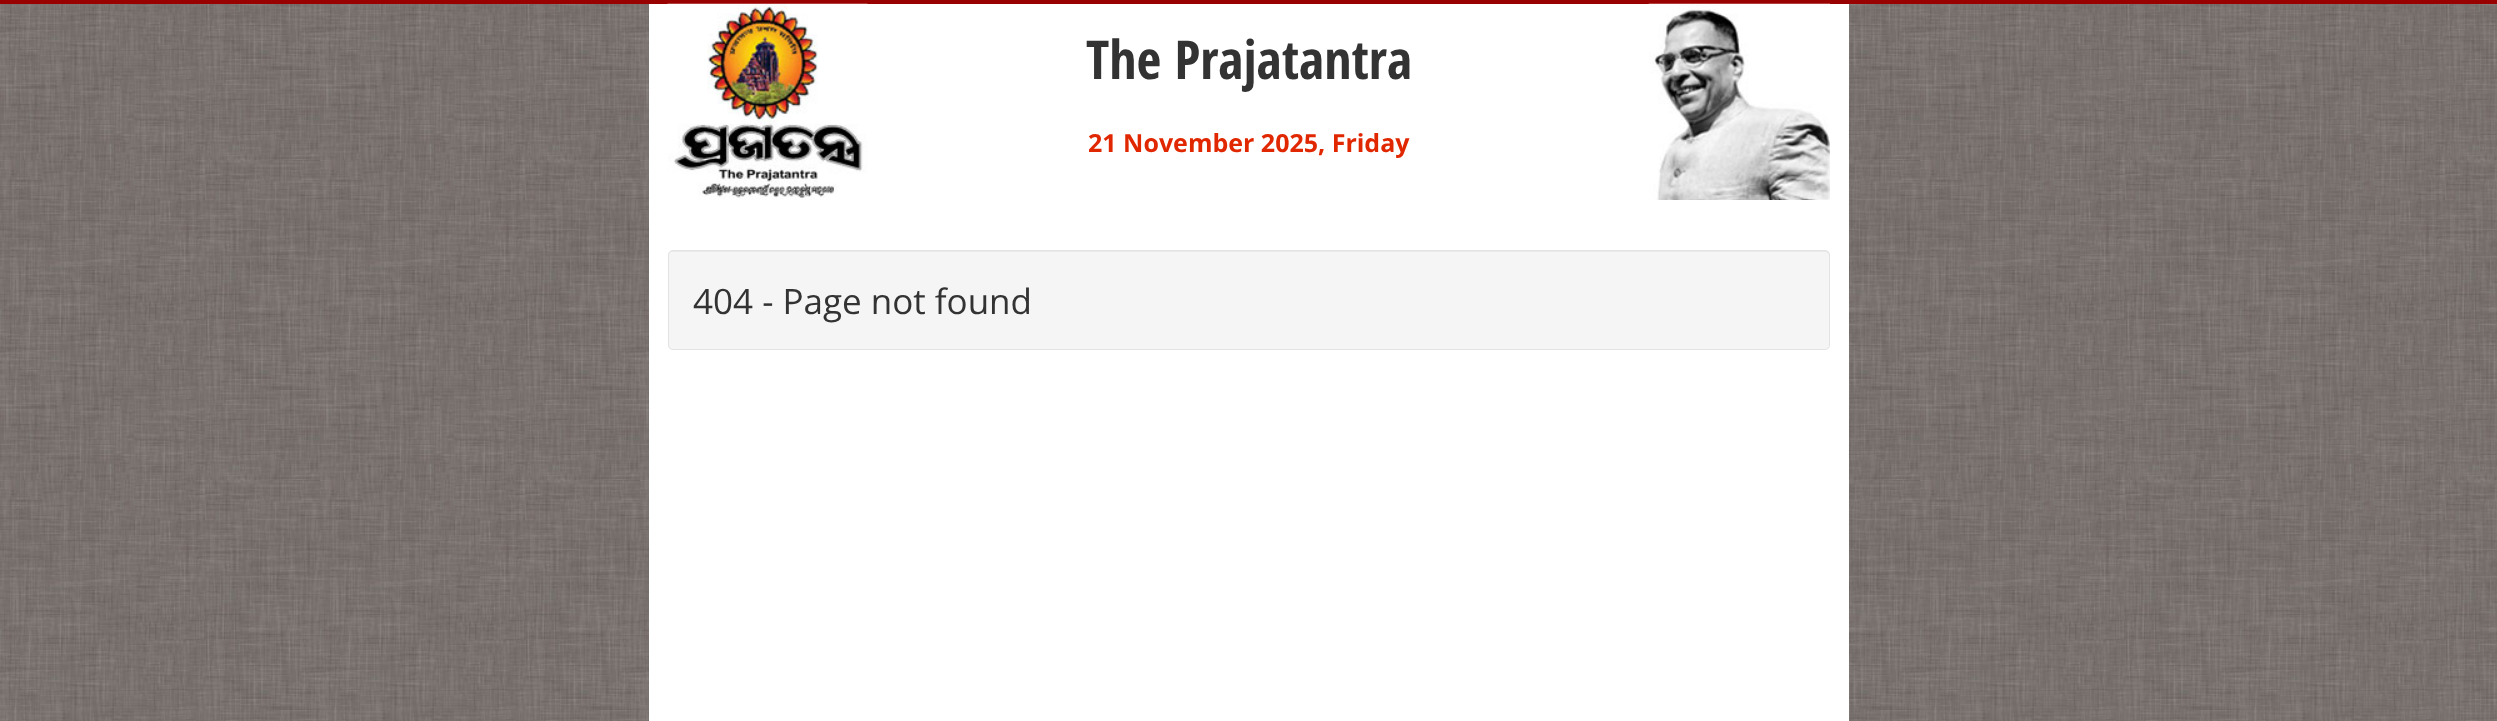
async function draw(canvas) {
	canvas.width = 2497;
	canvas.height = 721;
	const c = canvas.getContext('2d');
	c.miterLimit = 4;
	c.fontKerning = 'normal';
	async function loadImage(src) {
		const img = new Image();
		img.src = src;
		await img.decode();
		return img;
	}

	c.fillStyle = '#fff';
	c.fillRect(0, 0, 2497, 721);
	c.drawImage(await loadImage('img1.png'), 0, 4, 2497, 717);
	c.fillStyle = '#900';
	c.fillRect(0, 0, 2497, 4);
	c.fillStyle = '#fff';
	c.fillRect(649, 4, 1200, 717);
	c.drawImage(await loadImage('img2.png'), 667, 3, 201, 197);
	c.font = 'bold 53.75px Open Sans Condensed';
	c.fillStyle = '#333';
	c.fillText('The Prajatantra', 1086, 79);
	c.font = 'bold 25px Open Sans';
	c.fillStyle = '#e12700';
	c.fillText('21 November 2025, Friday', 1088, 152);
	c.drawImage(await loadImage('img3.png'), 1648, 3, 182, 197);
	c.fillStyle = '#f5f5f5';
	c.beginPath();
	c.roundRect(668, 250, 1162, 100, 5);
	c.fill();
	c.fillStyle = '#e9e9e9';
	c.beginPath();
	c.moveTo(672, 252);
	c.lineTo(1825, 252);
	c.bezierCurveTo(1827, 252, 1829, 254, 1829, 256);
	c.bezierCurveTo(1829, 253, 1828, 251, 1825, 251);
	c.lineTo(673, 251);
	c.bezierCurveTo(670, 251, 669, 253, 669, 256);
	c.bezierCurveTo(669, 254, 670, 252, 672, 252);
	c.closePath();
	c.fill();
	c.beginPath();
	c.roundRect(668.5, 250.5, 1161, 99, 4.5);
	c.strokeStyle = '#e3e3e3';
	c.stroke();
	c.font = '35px Open Sans';
	c.fillStyle = '#333';
	c.fillText('404 - Page not found', 693, 314);
}

draw(document.querySelector('canvas'));
